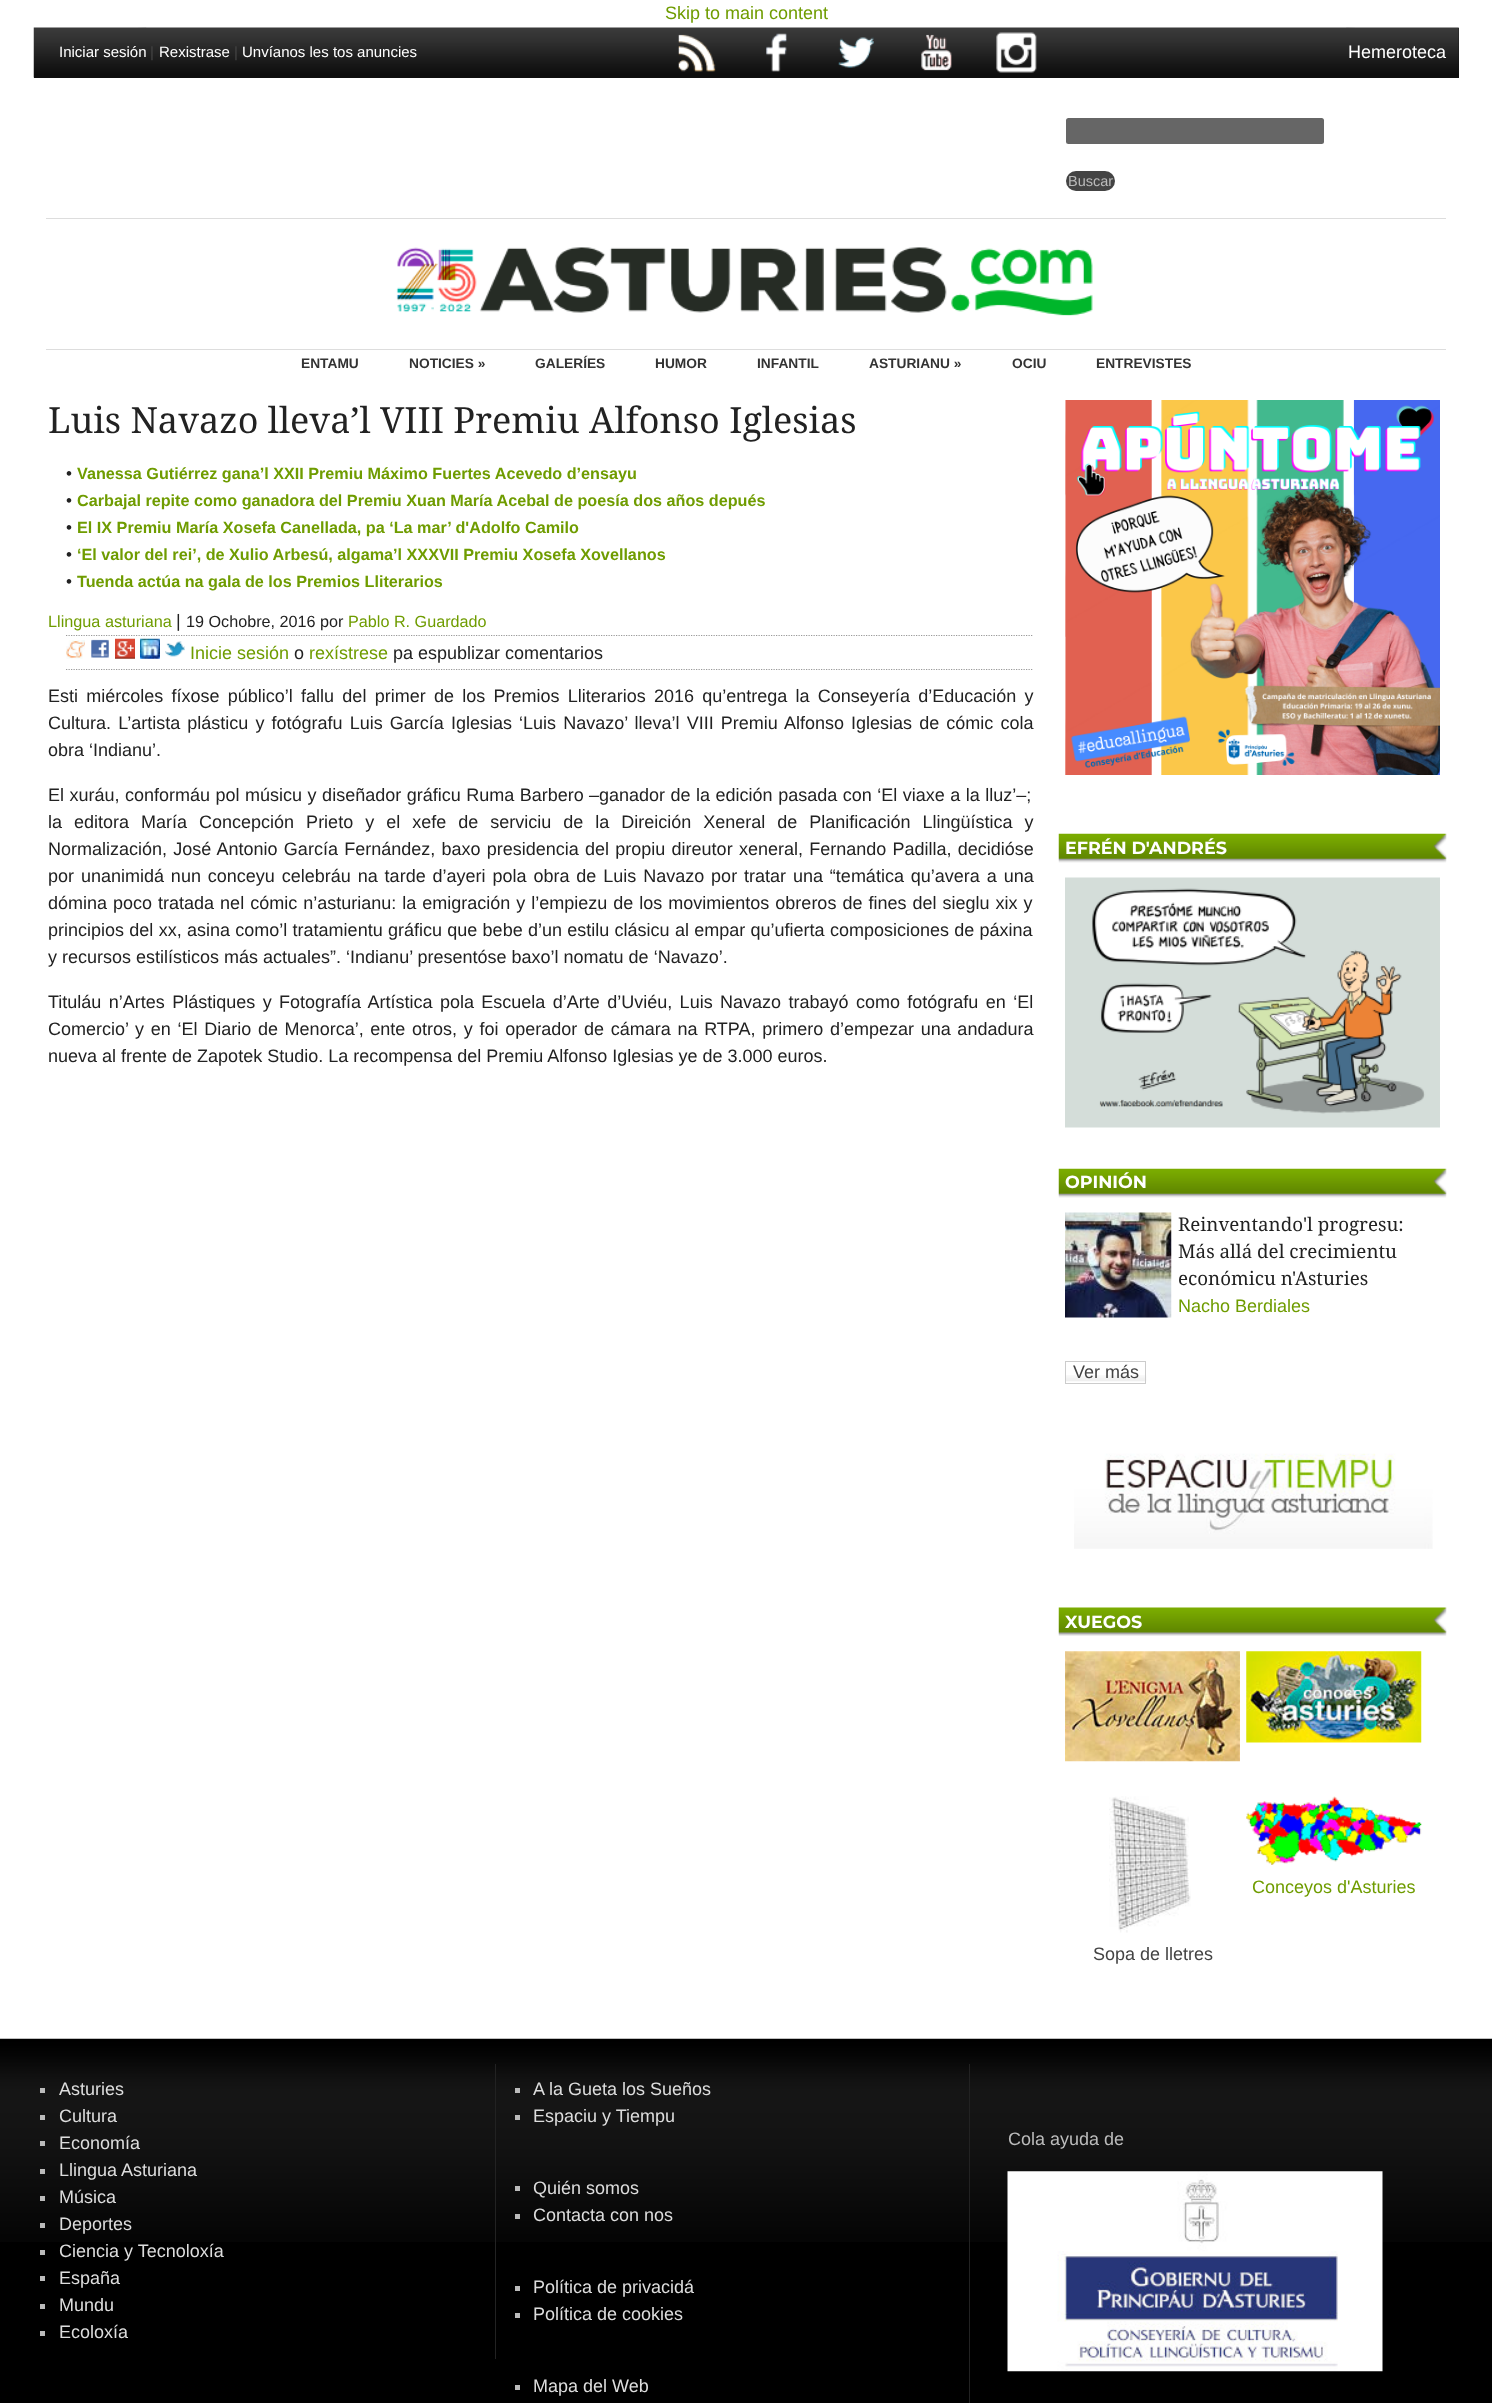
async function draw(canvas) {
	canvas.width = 1492;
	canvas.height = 2403;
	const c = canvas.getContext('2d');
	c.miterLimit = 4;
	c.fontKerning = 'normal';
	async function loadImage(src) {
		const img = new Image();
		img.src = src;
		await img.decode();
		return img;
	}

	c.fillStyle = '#fff';
	c.fillRect(0, 0, 1492, 2403);
	c.font = '18px Liberation Sans';
	c.fillStyle = '#6f9c00';
	c.fillText('Skip to main content', 665, 19);
	c.drawImage(await loadImage('img1.png'), 138, 27, 1217, 1);
	c.fillStyle = '#111';
	c.fillRect(34, 28, 1425, 50);
	c.drawImage(await loadImage('img2.png'), 33, 27, 1426, 51);
	c.font = '15px Liberation Sans';
	c.fillStyle = '#fff';
	c.fillText('Iniciar sesión', 59, 57);
	c.fillStyle = '#444';
	c.fillText('|', 150, 57);
	c.fillStyle = '#fff';
	c.fillText('Rexistrase', 159, 57);
	c.fillStyle = '#444';
	c.fillText('|', 234, 57);
	c.fillStyle = '#fff';
	c.fillText('Unvíanos les tos anuncies', 242, 57);
	c.drawImage(await loadImage('img3.png'), 678, 34, 38, 38);
	c.drawImage(await loadImage('img4.png'), 766, 33, 21, 39);
	c.drawImage(await loadImage('img5.png'), 838, 37, 36, 31);
	c.drawImage(await loadImage('img6.png'), 921, 34, 31, 37);
	c.drawImage(await loadImage('img7.png'), 996, 32, 41, 41);
	c.font = '18px Liberation Sans';
	c.fillText('Hemeroteca', 1348, 58);
	c.fillStyle = '#666';
	c.beginPath();
	c.roundRect(1066, 118, 258, 26, 2.5);
	c.fill();
	c.fillStyle = '#444';
	c.beginPath();
	c.roundRect(1066, 171, 49, 20, 10);
	c.fill();
	c.font = '14.5px Liberation Sans';
	c.fillStyle = '#bbb';
	c.fillText('Buscar', 1068, 186);
	c.fillStyle = '#ddd';
	c.fillRect(46, 218, 1400, 1);
	c.drawImage(await loadImage('img8.png'), 396, 247, 697, 69);
	c.fillRect(46, 349, 1400, 1);
	c.font = 'bold 13.75px Liberation Sans';
	c.fillStyle = '#333';
	for (const [text, x, y] of [
		['ENTAMU', 301, 368],
		['NOTICIES »', 409, 368],
		['GALERÍES', 535, 368],
		['HUMOR', 655, 368],
		['INFANTIL', 757, 368],
		['ASTURIANU »', 869, 368],
		['OCIU', 1012, 368],
		['ENTREVISTES', 1096, 368],
	]) {
		c.fillText(text, x, y);
	}
	c.font = '36px Droid Serif';
	c.fillStyle = '#222';
	c.fillText('Luis Navazo lleva’l VIII Premiu Alfonso Iglesias', 48, 433);
	c.font = '17px Liberation Sans';
	c.fillText('•', 66, 479);
	c.font = 'bold 16.2px Liberation Sans';
	c.fillStyle = '#6f9c00';
	c.fillText('Vanessa Gutiérrez gana’l XXII Premiu Máximo Fuertes Acevedo d’ensayu', 77, 479);
	c.font = '17px Liberation Sans';
	c.fillStyle = '#222';
	c.fillText('•', 66, 506);
	c.font = 'bold 16.2px Liberation Sans';
	c.fillStyle = '#6f9c00';
	c.fillText('Carbajal repite como ganadora del Premiu Xuan María Acebal de poesía dos años depués', 77, 506);
	c.font = '17px Liberation Sans';
	c.fillStyle = '#222';
	c.fillText('•', 66, 533);
	c.font = 'bold 16.2px Liberation Sans';
	c.fillStyle = '#6f9c00';
	c.fillText('El IX Premiu María Xosefa Canellada, pa ‘La mar’ d\'Adolfo Camilo', 77, 533);
	c.font = '17px Liberation Sans';
	c.fillStyle = '#222';
	c.fillText('•', 66, 560);
	c.font = 'bold 16.2px Liberation Sans';
	c.fillStyle = '#6f9c00';
	c.fillText('‘El valor del rei’, de Xulio Arbesú, algama’l XXXVII Premiu Xosefa Xovellanos', 77, 560);
	c.font = '17px Liberation Sans';
	c.fillStyle = '#222';
	c.fillText('•', 66, 587);
	c.font = 'bold 16.2px Liberation Sans';
	c.fillStyle = '#6f9c00';
	c.fillText('Tuenda actúa na gala de los Premios Lliterarios', 77, 587);
	c.font = '16.25px Liberation Sans';
	c.fillText('Llingua asturiana', 48, 627);
	c.font = '18px Liberation Sans';
	c.fillStyle = '#222';
	c.fillText('|', 176, 627);
	c.font = '16.2px Liberation Sans';
	c.fillText('19 Ochobre, 2016 por', 186, 627);
	c.fillStyle = '#6f9c00';
	c.fillText('Pablo R. Guardado', 348, 627);
	c.beginPath();
	c.moveTo(66, 635.5);
	c.lineTo(1032.5, 635.5);
	c.strokeStyle = '#999';
	c.lineWidth = 1.2;
	c.setLineDash([1.25, 1.25]);
	c.stroke();
	c.beginPath();
	c.moveTo(66, 669.5);
	c.lineTo(1032.5, 669.5);
	c.stroke();
	c.drawImage(await loadImage('img9.png'), 66, 640, 19, 19);
	c.drawImage(await loadImage('img10.png'), 91, 639, 18, 19);
	c.drawImage(await loadImage('img11.png'), 115, 638, 20, 21);
	c.drawImage(await loadImage('img12.png'), 140, 638, 20, 21);
	c.drawImage(await loadImage('img13.png'), 165, 641, 20, 16);
	c.font = '18px Liberation Sans';
	c.fillText('Inicie sesión', 190, 659);
	c.fillStyle = '#222';
	c.fillText('o', 294, 659);
	c.fillStyle = '#6f9c00';
	c.fillText('rexístrese', 309, 659);
	c.fillStyle = '#222';
	c.fillText('pa espublizar comentarios', 393, 659);
	c.wordSpacing = '3.25px';
	c.fillText('Esti miércoles fíxose público’l fallu del primer de los Premios Lliterarios 2016 qu’entrega la Conseyería d’Educación y', 48, 702);
	c.wordSpacing = '2.1px';
	c.fillText('Cultura. L’artista plásticu y fotógrafu Luis García Iglesias ‘Luis Navazo’ lleva’l VIII Premiu Alfonso Iglesias de cómic cola', 48, 729);
	c.wordSpacing = '0px';
	c.fillText('obra ‘Indianu’.', 48, 756);
	c.wordSpacing = '0.5px';
	c.fillText('El xuráu, conformáu pol músicu y diseñador gráficu Ruma Barbero', 48, 801);
	c.wordSpacing = '0px';
	c.font = 'italic 18px Liberation Sans';
	c.fillText('–', 589, 801);
	c.wordSpacing = '0.5px';
	c.font = '18px Liberation Sans';
	c.fillText('ganador de la edición pasada con ‘El viaxe a la lluz’–;', 599, 801);
	c.wordSpacing = '7px';
	c.fillText('la editora María Concepción Prieto y el xefe de serviciu de la Direición Xeneral de Planificación Llingüística y', 48, 828);
	c.wordSpacing = '1.25px';
	c.fillText('Normalización, José Antonio García Fernández, baxo presidencia del propiu direutor xeneral, Fernando Padilla, decidióse', 48, 855);
	c.wordSpacing = '1.9px';
	c.fillText('por unanimidá nun conceyu celebráu na tarde d’ayeri pola obra de Luis Navazo por tratar una “temática qu’avera a una', 48, 882);
	c.wordSpacing = '1px';
	c.fillText('dómina poco tratada nel cómic n’asturianu: la emigración y l’empiezu de los movimientos obreros de fines del sieglu xix y', 48, 909);
	c.wordSpacing = '0.3px';
	c.fillText('principios del xx, asina como’l tratamientu gráficu que bebe d’un estilu clásicu al empar qu’ufierta composiciones de páxina', 48, 936);
	c.wordSpacing = '0px';
	c.fillText('y recursos estilísticos más actuales”. ‘Indianu’ presentóse baxo’l nomatu de ‘Navazo’.', 48, 963);
	c.wordSpacing = '2.4px';
	c.fillText('Tituláu n’Artes Plástiques y Fotografía Artística pola Escuela d’Arte d’Uviéu, Luis Navazo trabayó como fotógrafu en ‘El', 48, 1008);
	c.wordSpacing = '1.7px';
	c.fillText('Comercio’ y en ‘El Diario de Menorca’, ente otros, y foi operador de cámara na RTPA, primero d’empezar una andadura', 48, 1035);
	c.wordSpacing = '0px';
	c.fillText('nueva al frente de Zapotek Studio. La recompensa del Premiu Alfonso Iglesias ye de 3.000 euros.', 48, 1062);
	c.drawImage(await loadImage('img14.png'), 1065, 400, 375, 375);
	c.drawImage(await loadImage('img15.png'), 1058, 833, 389, 30);
	c.font = 'bold 17.5px Montserrat';
	c.fillStyle = '#fff';
	c.fillText('EFRÉN D\'ANDRÉS', 1065, 854);
	c.drawImage(await loadImage('img16.png'), 1065, 877, 375, 251);
	c.drawImage(await loadImage('img17.png'), 1058, 1168, 389, 30);
	c.fillText('OPINIÓN', 1065, 1188);
	c.drawImage(await loadImage('img18.png'), 1065, 1212, 107, 106);
	c.font = '18.75px Droid Serif';
	c.fillStyle = '#222';
	for (const [text, x, y] of [
		['Reinventando\'l progresu:', 1178, 1231],
		['Más allá del crecimientu', 1178, 1258],
		['económicu n\'Asturies', 1178, 1285],
	]) {
		c.fillText(text, x, y);
	}
	c.font = '18px Liberation Sans';
	c.fillStyle = '#6f9c00';
	c.fillText('Nacho Berdiales', 1178, 1312);
	c.drawImage(await loadImage('img19.png'), 1066, 1375, 81, 7);
	c.strokeStyle = '#ccc';
	c.lineWidth = 1;
	c.setLineDash([]);
	c.strokeRect(1065.5, 1361.5, 80, 22);
	c.fillStyle = '#444';
	c.fillText('Ver más', 1073, 1378);
	c.drawImage(await loadImage('img20.png'), 1074, 1453, 359, 96);
	c.drawImage(await loadImage('img21.png'), 1058, 1607, 389, 29);
	c.font = 'bold 17.5px Montserrat';
	c.fillStyle = '#fff';
	c.fillText('XUEGOS', 1065, 1628);
	c.drawImage(await loadImage('img22.png'), 1065, 1651, 175, 111);
	c.drawImage(await loadImage('img23.png'), 1246, 1651, 176, 92);
	c.drawImage(await loadImage('img24.png'), 1246, 1796, 176, 69);
	c.font = '18px Liberation Sans';
	c.fillStyle = '#6f9c00';
	c.fillText('Conceyos d\'Asturies', 1252, 1893);
	c.drawImage(await loadImage('img25.png'), 1109, 1796, 82, 137);
	c.fillStyle = '#444';
	c.fillText('Sopa de lletres', 1093, 1960);
	c.fillStyle = '#000';
	c.fillRect(0, 2242, 1492, 161);
	c.drawImage(await loadImage('img26.png'), 0, 2038, 1492, 204);
	c.fillStyle = '#222';
	c.fillRect(495, 2064, 1, 295);
	c.fillStyle = '#bbb';
	c.fillRect(40, 2088, 5, 5);
	c.fillStyle = '#ddd';
	c.fillText('Asturies', 59, 2095);
	c.fillStyle = '#bbb';
	c.fillRect(40, 2115, 5, 5);
	c.fillStyle = '#ddd';
	c.fillText('Cultura', 59, 2122);
	c.fillStyle = '#bbb';
	c.fillRect(40, 2141, 5, 5);
	c.fillStyle = '#ddd';
	c.fillText('Economía', 59, 2149);
	c.fillStyle = '#bbb';
	c.fillRect(40, 2169, 5, 5);
	c.fillStyle = '#ddd';
	c.fillText('Llingua Asturiana', 59, 2176);
	c.fillStyle = '#bbb';
	c.fillRect(40, 2196, 5, 5);
	c.fillStyle = '#ddd';
	c.fillText('Música', 59, 2203);
	c.fillStyle = '#bbb';
	c.fillRect(40, 2223, 5, 5);
	c.fillStyle = '#ddd';
	c.fillText('Deportes', 59, 2230);
	c.fillStyle = '#bbb';
	c.fillRect(40, 2250, 5, 5);
	c.fillStyle = '#ddd';
	c.fillText('Ciencia y Tecnoloxía', 59, 2257);
	c.fillStyle = '#bbb';
	c.fillRect(40, 2276, 5, 5);
	c.fillStyle = '#ddd';
	c.fillText('España', 59, 2284);
	c.fillStyle = '#bbb';
	c.fillRect(40, 2304, 5, 5);
	c.fillStyle = '#ddd';
	c.fillText('Mundu', 59, 2311);
	c.fillStyle = '#bbb';
	c.fillRect(40, 2331, 5, 5);
	c.fillStyle = '#ddd';
	c.fillText('Ecoloxía', 59, 2338);
	c.fillStyle = '#222';
	c.fillRect(969, 2064, 1, 339);
	c.fillStyle = '#bbb';
	c.fillRect(515, 2088, 5, 5);
	c.fillStyle = '#ddd';
	c.fillText('A la Gueta los Sueños', 533, 2095);
	c.fillStyle = '#bbb';
	c.fillRect(515, 2115, 5, 5);
	c.fillStyle = '#ddd';
	c.fillText('Espaciu y Tiempu', 533, 2122);
	c.fillStyle = '#bbb';
	c.fillRect(515, 2186, 5, 5);
	c.fillStyle = '#ddd';
	c.fillText('Quién somos', 533, 2194);
	c.fillStyle = '#bbb';
	c.fillRect(515, 2214, 5, 5);
	c.fillStyle = '#ddd';
	c.fillText('Contacta con nos', 533, 2221);
	c.fillStyle = '#bbb';
	c.fillRect(515, 2286, 5, 5);
	c.fillStyle = '#ddd';
	c.fillText('Política de privacidá', 533, 2293);
	c.fillStyle = '#bbb';
	c.fillRect(515, 2313, 5, 5);
	c.fillStyle = '#ddd';
	c.fillText('Política de cookies', 533, 2320);
	c.fillStyle = '#bbb';
	c.fillRect(515, 2385, 5, 5);
	c.fillStyle = '#ddd';
	c.fillText('Mapa del Web', 533, 2392);
	c.fillStyle = '#bbb';
	c.fillText('Cola ayuda de', 1008, 2145);
	c.drawImage(await loadImage('img27.png'), 1007, 2171, 376, 201);
}

draw(document.querySelector('canvas'));
